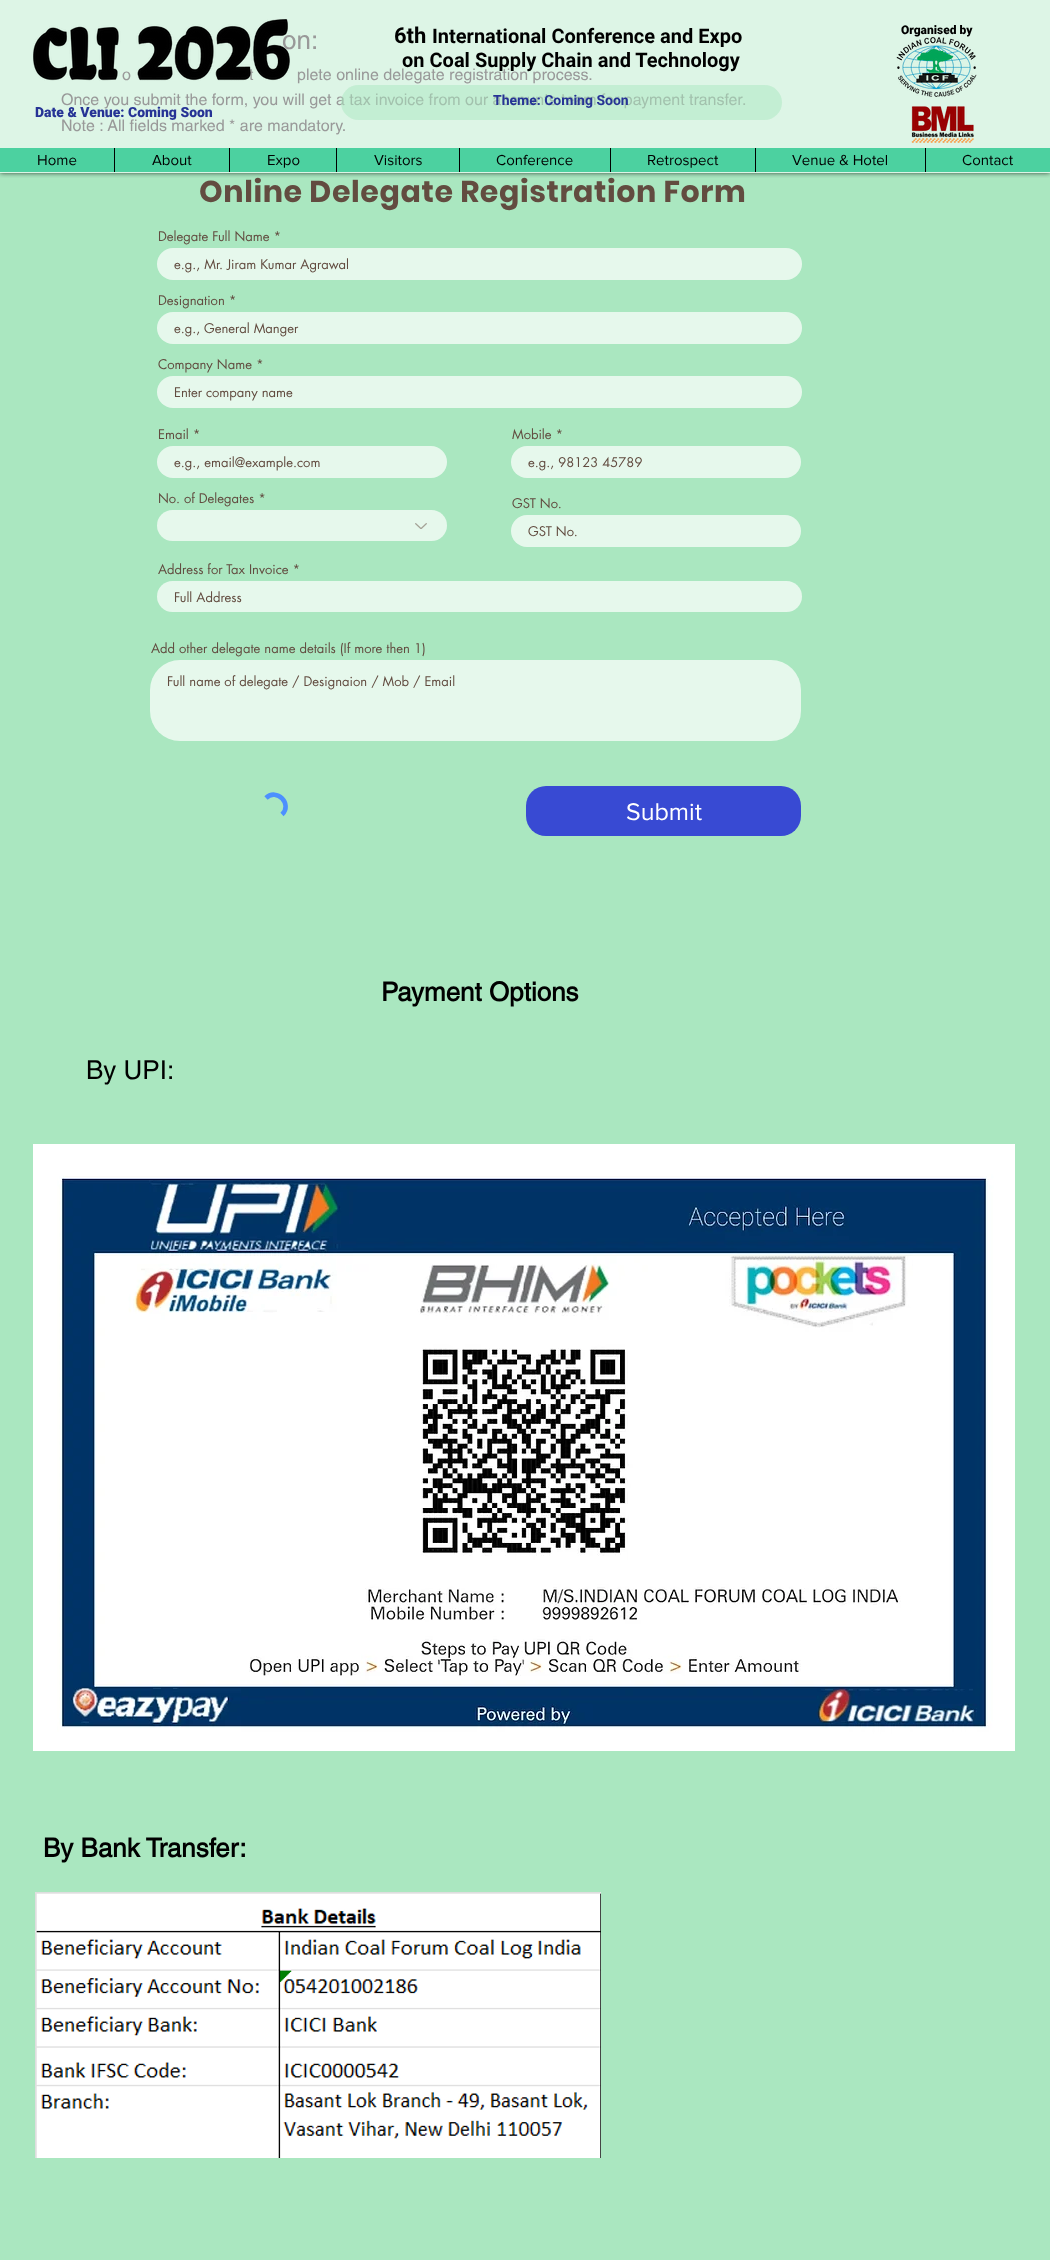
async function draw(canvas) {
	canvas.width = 1050;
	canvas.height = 2260;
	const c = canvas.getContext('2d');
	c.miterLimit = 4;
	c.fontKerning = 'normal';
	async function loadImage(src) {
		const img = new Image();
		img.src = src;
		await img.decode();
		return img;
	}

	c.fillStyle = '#aae7c0';
	c.fillRect(0, 0, 1050, 2260);
	c.fillStyle = '#ddf5e6';
	c.fillRect(0, 0, 1050, 173);
	c.save();
	c.beginPath();
	c.rect(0, 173, 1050, 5);
	c.clip();
	c.fillStyle = '#000000b3';
	c.filter = 'blur(2.5px)';
	c.beginPath();
	c.rect(0, 0, 1050, 173);
	c.fill();
	c.filter = 'none';
	c.restore();
	c.font = '26px helvetica';
	c.fillStyle = '#999';
	c.fillText('on:', 282, 49);
	c.font = '16px helvetica';
	c.fillText('o', 122, 80);
	c.fillText('t', 249, 80);
	c.drawImage(await loadImage('img1.png'), 33, 19, 257, 62);
	c.font = 'bold 22px Roboto';
	c.fillStyle = '#000';
	c.fillText('6th', 394, 43);
	c.font = 'bold 20px Roboto';
	c.fillText('International Conference and Expo', 432, 43);
	c.fillText('on Coal Supply Chain and Technology', 402, 67);
	c.font = '900 12px Roboto';
	c.fillText('Organised by', 901, 34);
	c.drawImage(await loadImage('img2.png'), 896, 37, 81, 60);
	c.font = '16px helvetica';
	c.fillStyle = '#999';
	c.fillText('Once you submit the form, you will get a tax invoice from our accounts team for payment transfer.', 61, 105);
	c.fillText('Note : All fields marked * are mandatory.', 61, 131);
	c.fillStyle = '#aae7c082';
	c.beginPath();
	c.roundRect(341, 85, 441, 35, 17.5);
	c.fill();
	c.font = 'bold 14px Roboto';
	c.fillStyle = '#263395';
	c.fillText('Theme: Coming Soon', 493, 105);
	c.font = '900 14px Roboto';
	c.fillText('Date & Venue: Coming Soon', 35, 117);
	c.drawImage(await loadImage('img3.png'), 911, 106, 63, 37);
	c.fillStyle = '#4cd1a0';
	c.fillRect(0, 148, 1050, 24);
	c.font = '15px "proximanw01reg"';
	c.fillStyle = '#000';
	c.fillText('Home', 37, 165);
	c.fillRect(114, 148, 1, 24);
	c.fillText('About', 152, 165);
	c.fillRect(229, 148, 1, 24);
	c.fillText('Expo', 267, 165);
	c.fillRect(336, 148, 1, 24);
	c.fillText('Visitors', 374, 165);
	c.fillRect(459, 148, 1, 24);
	c.fillText('Conference', 496, 165);
	c.fillRect(610, 148, 1, 24);
	c.fillText('Retrospect', 647, 165);
	c.fillRect(755, 148, 1, 24);
	c.fillText('Venue & Hotel', 792, 165);
	c.fillRect(925, 148, 1, 24);
	c.fillText('Contact', 962, 165);
	c.font = '16px helvetica';
	c.fillStyle = '#999';
	c.fillText('plete online delegate registration process.', 297, 80);
	c.letterSpacing = '0.6px';
	c.font = 'bold 30px Poppins';
	c.fillStyle = '#624c40';
	c.fillText('Online Delegate Registration Form', 199, 202);
	c.letterSpacing = '0px';
	c.font = '13px futura';
	c.fillText('Delegate Full Name *', 158, 241);
	c.fillStyle = '#e6f8ec';
	c.beginPath();
	c.roundRect(157, 248, 645, 32, 16);
	c.fill();
	c.fillStyle = '#624c40';
	c.fillText('e.g., Mr. Jiram Kumar Agrawal', 174, 269);
	c.fillText('Designation *', 158, 305);
	c.fillStyle = '#e6f8ec';
	c.beginPath();
	c.roundRect(157, 312, 645, 32, 16);
	c.fill();
	c.fillStyle = '#624c40';
	c.fillText('e.g., General Manger', 174, 333);
	c.fillText('Company Name *', 158, 369);
	c.fillStyle = '#e6f8ec';
	c.beginPath();
	c.roundRect(157, 376, 645, 32, 16);
	c.fill();
	c.fillStyle = '#624c40';
	c.fillText('Enter company name', 174, 397);
	c.fillText('Email *', 158, 439);
	c.fillStyle = '#e6f8ec';
	c.beginPath();
	c.roundRect(157, 446, 290, 32, 16);
	c.fill();
	c.fillStyle = '#624c40';
	c.fillText('e.g., email@example.com', 174, 467);
	c.fillText('Mobile *', 512, 439);
	c.fillStyle = '#e6f8ec';
	c.beginPath();
	c.roundRect(511, 446, 290, 32, 16);
	c.fill();
	c.fillStyle = '#624c40';
	c.fillText('e.g., 98123 45789', 528, 467);
	c.fillText('No. of Delegates *', 158, 503);
	c.fillStyle = '#e6f8ec';
	c.beginPath();
	c.roundRect(157, 510, 290, 31, 15.5);
	c.fill();
	c.drawImage(await loadImage('img4.png'), 415, 523, 12, 6);
	c.fillStyle = '#624c40';
	c.fillText('GST No.', 512, 508);
	c.fillStyle = '#e6f8ec';
	c.beginPath();
	c.roundRect(511, 515, 290, 32, 16);
	c.fill();
	c.fillStyle = '#624c40';
	c.fillText('GST No.', 528, 536);
	c.fillText('Address for Tax Invoice *', 158, 574);
	c.fillStyle = '#e6f8ec';
	c.beginPath();
	c.roundRect(157, 581, 645, 31, 15.5);
	c.fill();
	c.fillStyle = '#624c40';
	c.fillText('Full Address', 174, 602);
	c.fillText('Add other delegate name details (If more then 1)', 151, 653);
	c.fillStyle = '#e6f8ec';
	c.beginPath();
	c.roundRect(150, 660, 651, 81, 30);
	c.fill();
	c.fillStyle = '#624c40';
	c.fillText('Full name of delegate / Designaion / Mob / Email', 167, 686);
	c.beginPath();
	c.moveTo(266, 798);
	c.bezierCurveTo(276.5, 787.5, 293, 804, 282, 814.5);
	c.strokeStyle = '#4d90fe';
	c.lineWidth = 4.6;
	c.stroke();
	c.fillStyle = '#384ad3';
	c.beginPath();
	c.roundRect(526, 786, 275, 50, 20);
	c.fill();
	c.font = '25px "proximanw01reg"';
	c.fillStyle = '#fff';
	c.fillText('Submit', 626, 820);
	c.font = 'bold 26px helvetica';
	c.fillStyle = '#000';
	c.fillText('Payment Options', 381, 1001);
	c.font = '26px helvetica';
	c.fillText('By UPI:', 86, 1079);
	c.drawImage(await loadImage('img5.png'), 33, 1144, 982, 607);
	c.font = 'bold 26px helvetica';
	c.fillText('By Bank Transfer:', 43, 1857);
	c.drawImage(await loadImage('img6.png'), 35, 1892, 566, 266);
}

draw(document.querySelector('canvas'));
